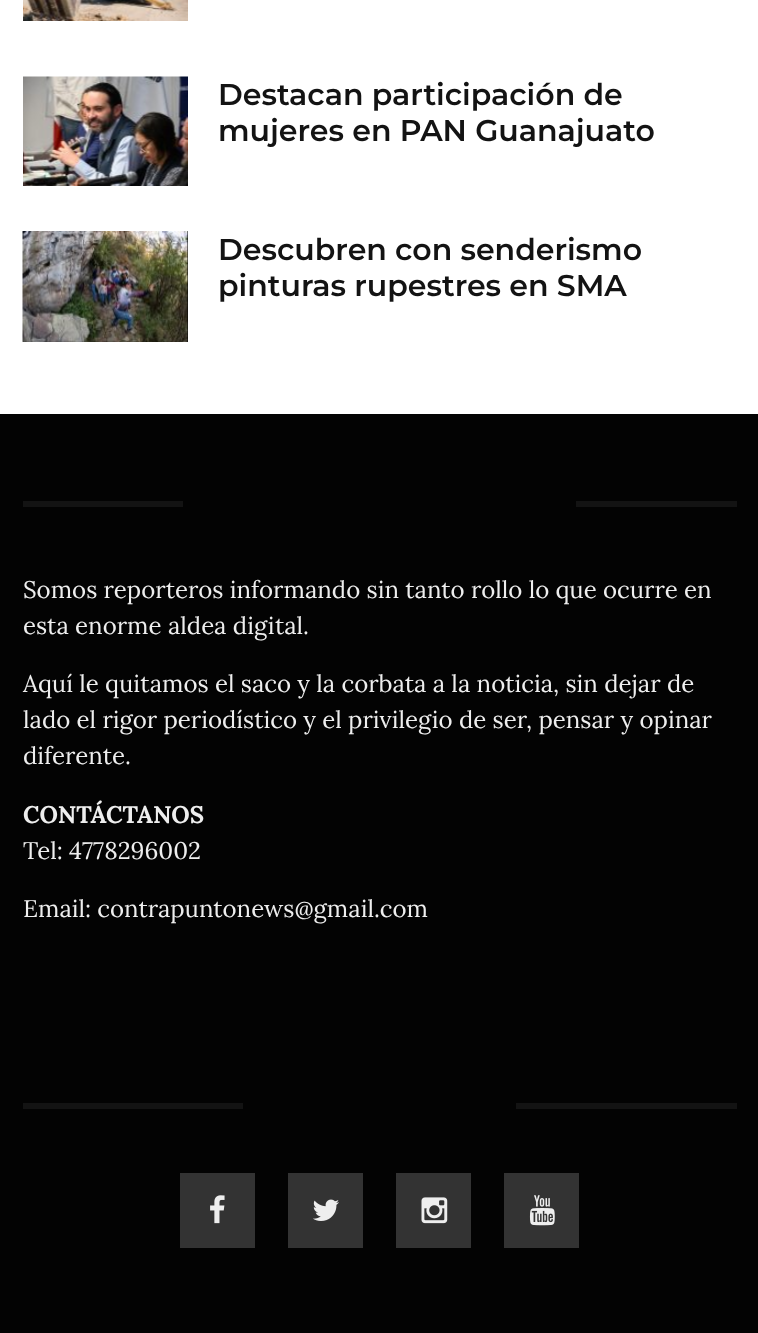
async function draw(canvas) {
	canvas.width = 758;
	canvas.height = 1333;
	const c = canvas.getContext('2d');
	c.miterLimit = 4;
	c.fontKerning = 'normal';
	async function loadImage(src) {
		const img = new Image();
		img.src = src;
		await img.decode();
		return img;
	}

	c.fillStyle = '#fff';
	c.fillRect(0, 0, 758, 1333);
	c.drawImage(await loadImage('img1.png'), 23, 0, 165, 21);
	c.drawImage(await loadImage('img2.png'), 23, 76, 165, 110);
	c.font = '600 30px Montserrat';
	c.fillStyle = '#131313';
	c.fillText('Destacan participación de', 218, 105);
	c.fillText('mujeres en PAN Guanajuato', 218, 141);
	c.fillStyle = '#000';
	c.fillRect(23, 231, 165, 111);
	c.drawImage(await loadImage('img3.png'), 22, 231, 166, 111);
	c.fillStyle = '#131313';
	c.fillText('Descubren con senderismo', 218, 260);
	c.fillText('pinturas rupestres en SMA', 218, 296);
	for (const [x, y, w, h, color] of [
		[0, 414, 758, 919, '#030303'],
		[23, 501, 714, 6, '#131313'],
		[183, 501, 393, 6, '#030303'],
	]) {
		c.fillStyle = color;
		c.fillRect(x, y, w, h);
	}
	c.font = '24px Lora';
	c.fillStyle = '#eee';
	for (const [text, x, y] of [
		['Somos reporteros informando sin tanto rollo lo que ocurre en', 23, 598],
		['esta enorme aldea digital.', 23, 634],
		['Aquí le quitamos el saco y la corbata a la noticia, sin dejar de', 23, 692],
		['lado el rigor periodístico y el privilegio de ser, pensar y opinar', 23, 728],
		['diferente.', 23, 764],
	]) {
		c.fillText(text, x, y);
	}
	c.font = 'bold 24px Lora';
	c.fillText('CONTÁCTANOS', 23, 823);
	c.font = '24px Lora';
	c.fillText('Tel: 4778296002', 23, 859);
	c.fillText('Email: contrapuntonews@gmail.com', 23, 917);
	for (const [x, y, w, h, color] of [
		[23, 1103, 714, 6, '#131313'],
		[243, 1103, 273, 6, '#030303'],
		[180, 1173, 75, 75, '#333'],
	]) {
		c.fillStyle = color;
		c.fillRect(x, y, w, h);
	}
	c.drawImage(await loadImage('img4.png'), 210, 1195, 15, 29);
	c.fillRect(288, 1173, 75, 75);
	c.drawImage(await loadImage('img5.png'), 313, 1199, 26, 22);
	c.fillRect(396, 1173, 75, 75);
	c.drawImage(await loadImage('img6.png'), 421, 1197, 27, 27);
	c.fillRect(504, 1173, 75, 75);
	c.drawImage(await loadImage('img7.png'), 529, 1195, 26, 31);
}

draw(document.querySelector('canvas'));
